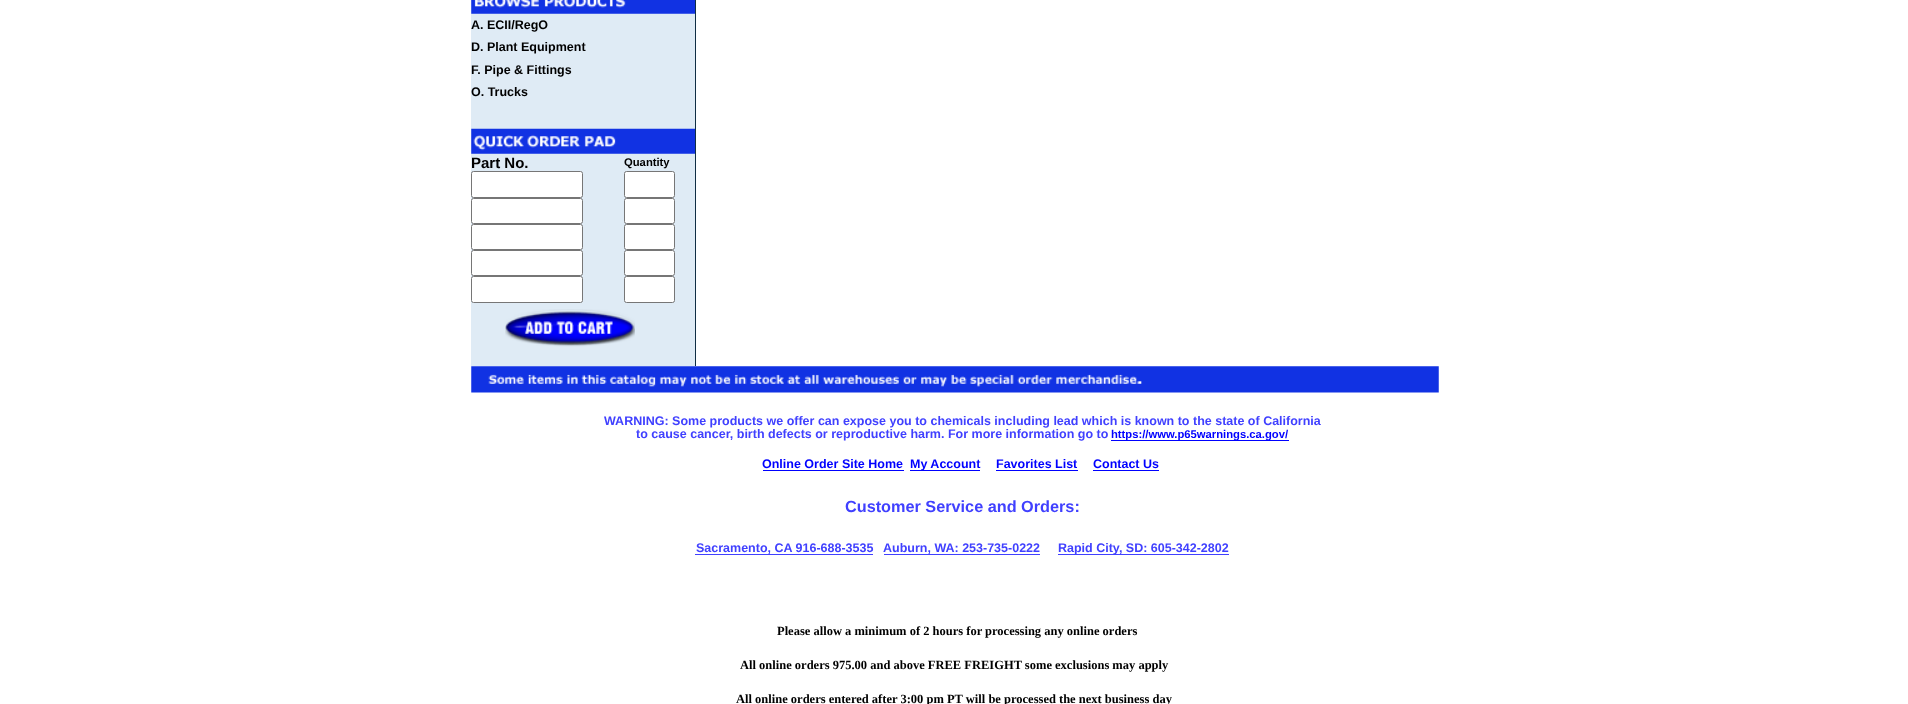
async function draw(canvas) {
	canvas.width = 1908;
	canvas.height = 704;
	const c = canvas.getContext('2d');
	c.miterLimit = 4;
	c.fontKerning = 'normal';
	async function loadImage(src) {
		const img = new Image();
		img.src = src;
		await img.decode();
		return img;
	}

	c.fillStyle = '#fff';
	c.fillRect(0, 0, 1908, 704);
	c.fillStyle = '#dfebf5';
	c.fillRect(471, 0, 224, 366);
	c.fillStyle = '#102e44';
	c.fillRect(695, 0, 1, 366);
	c.drawImage(await loadImage('img1.png'), 471, 0, 224, 14);
	c.font = 'bold 12.5px Liberation Sans';
	c.fillStyle = '#000';
	for (const [text, x, y] of [
		['A. ECII/RegO', 471, 29],
		['D. Plant Equipment', 471, 51],
		['F. Pipe & Fittings', 471, 74],
		['O. Trucks', 471, 96],
	]) {
		c.fillText(text, x, y);
	}
	c.drawImage(await loadImage('img2.png'), 471, 128, 224, 26);
	c.font = 'bold 15px Liberation Sans';
	c.fillText('Part No.', 471, 168);
	c.font = 'bold 11.25px Liberation Sans';
	c.fillText('Quantity', 624, 166);
	c.fillStyle = '#fff';
	c.beginPath();
	c.roundRect(471.5, 171.5, 111, 26, 2);
	c.fill();
	c.strokeStyle = '#767676';
	c.stroke();
	c.beginPath();
	c.roundRect(624.5, 171.5, 50, 26, 2);
	c.fill();
	c.stroke();
	c.beginPath();
	c.roundRect(471.5, 198.5, 111, 25, 2);
	c.fill();
	c.stroke();
	c.beginPath();
	c.roundRect(624.5, 198.5, 50, 25, 2);
	c.fill();
	c.stroke();
	c.beginPath();
	c.roundRect(471.5, 224.5, 111, 25, 2);
	c.fill();
	c.stroke();
	c.beginPath();
	c.roundRect(624.5, 224.5, 50, 25, 2);
	c.fill();
	c.stroke();
	c.beginPath();
	c.roundRect(471.5, 250.5, 111, 25, 2);
	c.fill();
	c.stroke();
	c.beginPath();
	c.roundRect(624.5, 250.5, 50, 25, 2);
	c.fill();
	c.stroke();
	c.beginPath();
	c.roundRect(471.5, 276.5, 111, 26, 2);
	c.fill();
	c.stroke();
	c.beginPath();
	c.roundRect(624.5, 276.5, 50, 26, 2);
	c.fill();
	c.stroke();
	c.drawImage(await loadImage('img3.png'), 505, 309, 130, 38);
	c.drawImage(await loadImage('img4.png'), 471, 366, 968, 27);
	c.font = 'bold 12.5px Liberation Sans';
	c.fillStyle = '#4040ff';
	c.fillText('WARNING: Some products we offer can expose you to chemicals including lead which is known to the state of California', 604, 425);
	c.fillText('to cause cancer, birth defects or reproductive harm. For more information go to', 636, 438);
	c.fillStyle = '#00f';
	c.fillRect(1111, 440, 178, 1);
	c.font = 'bold 11.25px Liberation Sans';
	c.fillText('https://www.p65warnings.ca.gov/', 1111, 438);
	c.font = 'bold 12.5px Liberation Sans';
	c.fillText('Online Order Site Home', 762, 468);
	c.fillRect(763, 470, 141, 1);
	c.fillRect(910, 470, 70, 1);
	c.fillText('My Account', 910, 468);
	c.fillText('Favorites List', 996, 468);
	c.fillRect(996, 470, 82, 1);
	c.fillText('Contact Us', 1093, 468);
	c.fillRect(1093, 470, 66, 1);
	c.font = 'bold 16.25px Liberation Sans';
	c.fillStyle = '#4040ff';
	c.fillText('Customer Service and Orders:', 845, 512);
	c.font = 'bold 12.5px Liberation Sans';
	c.fillText('Sacramento, CA 916-688-3535', 696, 552);
	c.fillRect(695, 554, 178, 1);
	c.fillText('Auburn, WA: 253-735-0222', 883, 552);
	c.fillRect(884, 554, 156, 1);
	c.fillRect(1058, 554, 171, 1);
	c.fillText('Rapid City, SD: 605-342-2802', 1058, 552);
	c.font = 'bold 12.5px Liberation Serif';
	c.fillStyle = '#000';
	for (const [text, x, y] of [
		['Please allow a minimum of 2 hours for processing any online orders', 777, 635],
		['All online orders 975.00 and above FREE FREIGHT some exclusions may apply', 740, 669],
		['All online orders entered after 3:00 pm PT will be processed the next business day', 736, 703],
	]) {
		c.fillText(text, x, y);
	}
}

draw(document.querySelector('canvas'));
